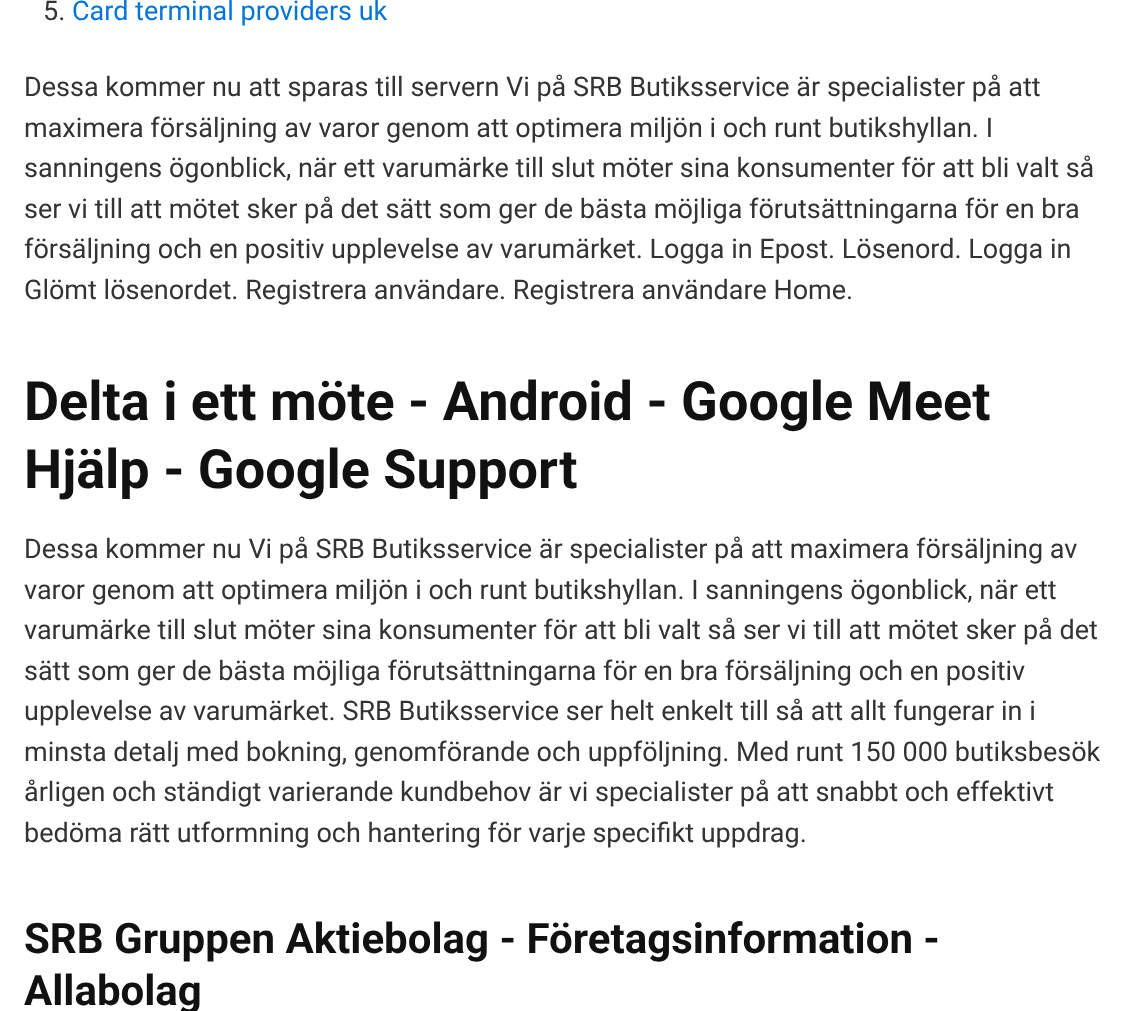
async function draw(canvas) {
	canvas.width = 1140;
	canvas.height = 1011;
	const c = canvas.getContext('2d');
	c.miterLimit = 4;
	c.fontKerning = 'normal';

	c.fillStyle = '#fff';
	c.fillRect(0, 0, 1140, 1011);
	c.font = '27px Roboto';
	c.fillStyle = '#333';
	c.fillText('5.', 43, 20);
	c.fillStyle = '#0275d8';
	c.fillText('Card terminal providers uk', 72, 20);
	c.fillStyle = '#333';
	for (const [text, x, y] of [
		['Dessa kommer nu att sparas till servern Vi på SRB Butiksservice är specialister på att', 24, 96],
		['maximera försäljning av varor genom att optimera miljön i och runt butikshyllan. I', 24, 137],
		['sanningens ögonblick, när ett varumärke till slut möter sina konsumenter för att bli valt så', 24, 177],
		['ser vi till att mötet sker på det sätt som ger de bästa möjliga förutsättningarna för en bra', 24, 218],
		['försäljning och en positiv upplevelse av varumärket. Logga in Epost. Lösenord. Logga in', 24, 258],
		['Glömt lösenordet. Registrera användare. Registrera användare Home.', 24, 299],
	]) {
		c.fillText(text, x, y);
	}
	c.font = 'bold 54px Roboto';
	c.fillStyle = '#111';
	c.fillText('Delta i ett möte - Android - Google Meet', 24, 420);
	c.fillText('Hjälp - Google Support', 24, 488);
	c.font = '27px Roboto';
	c.fillStyle = '#333';
	for (const [text, x, y] of [
		['Dessa kommer nu Vi på SRB Butiksservice är specialister på att maximera försäljning av', 24, 558],
		['varor genom att optimera miljön i och runt butikshyllan. I sanningens ögonblick, när ett', 24, 599],
		['varumärke till slut möter sina konsumenter för att bli valt så ser vi till att mötet sker på det', 24, 639],
		['sätt som ger de bästa möjliga förutsättningarna för en bra försäljning och en positiv', 24, 680],
		['upplevelse av varumärket. SRB Butiksservice ser helt enkelt till så att allt fungerar in i', 24, 720],
		['minsta detalj med bokning, genomförande och uppföljning. Med runt 150 000 butiksbesök', 24, 761],
		['årligen och ständigt varierande kundbehov är vi specialister på att snabbt och effektivt', 24, 801],
		['bedöma rätt utformning och hantering för varje specifikt uppdrag.', 24, 842],
	]) {
		c.fillText(text, x, y);
	}
	c.font = 'bold 42px Roboto';
	c.fillStyle = '#111';
	c.fillText('SRB Gruppen Aktiebolag - Företagsinformation -', 24, 953);
	c.fillText('Allabolag', 24, 1005);
}

draw(document.querySelector('canvas'));
